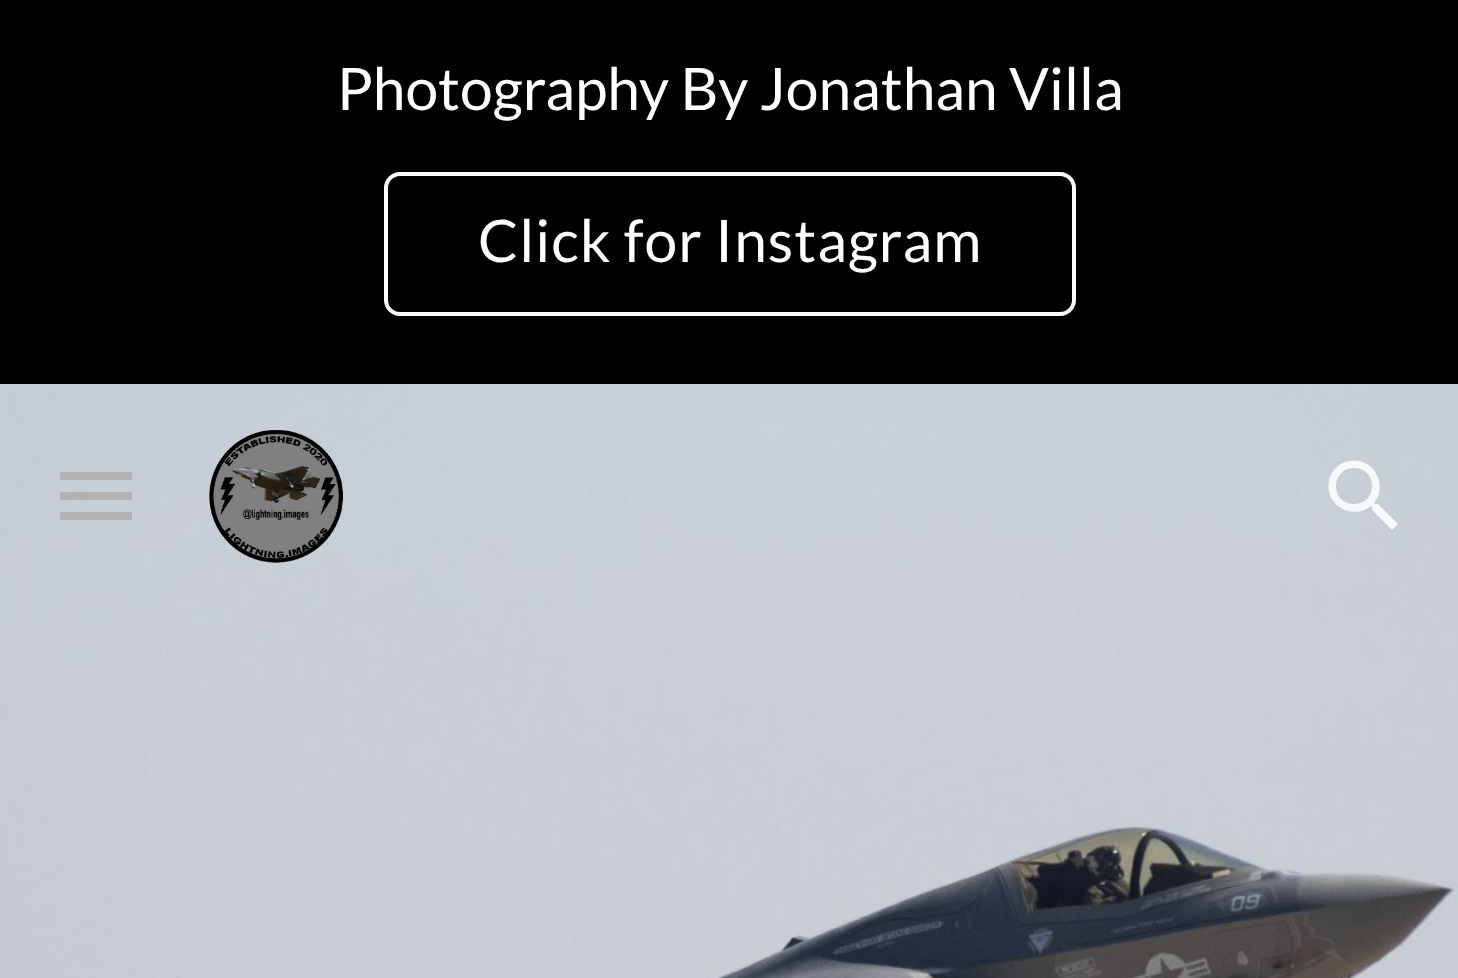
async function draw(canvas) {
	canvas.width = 1458;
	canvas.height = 978;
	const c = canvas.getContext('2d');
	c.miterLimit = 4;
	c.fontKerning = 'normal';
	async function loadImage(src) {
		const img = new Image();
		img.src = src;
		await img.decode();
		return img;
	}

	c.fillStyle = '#fff';
	c.fillRect(0, 0, 1458, 978);
	c.fillStyle = '#000';
	c.fillRect(0, 0, 1458, 384);
	c.font = '58.7px Lato';
	c.fillStyle = '#fff';
	c.fillText('Photography By Jonathan Villa', 337, 110);
	c.beginPath();
	c.roundRect(386, 174, 688, 140, 14);
	c.strokeStyle = '#fff';
	c.lineWidth = 4;
	c.stroke();
	c.letterSpacing = '1px';
	c.fillText('Click for Instagram', 478, 262);
	c.drawImage(await loadImage('img2.png'), 0, 384, 1458, 594);
	for (const [x, y, w, h, color] of [
		[60, 472, 72, 8, '#b2b2b2'],
		[60, 492, 72, 8, '#b2b2b2'],
		[60, 512, 72, 8, '#b2b2b2'],
	]) {
		c.fillStyle = color;
		c.fillRect(x, y, w, h);
	}
	c.drawImage(await loadImage('img1.png'), 209, 430, 135, 133);
	c.fillStyle = '#ffffffde';
	c.beginPath();
	c.moveTo(1378, 504);
	c.lineTo(1375, 504);
	c.lineTo(1374, 503);
	c.bezierCurveTo(1389, 485, 1373, 456, 1349, 461);
	c.bezierCurveTo(1344, 462, 1339, 464, 1336, 468);
	c.bezierCurveTo(1332, 471, 1330, 476, 1329, 481);
	c.bezierCurveTo(1324, 505, 1353, 521, 1371, 506);
	c.lineTo(1372, 507);
	c.lineTo(1372, 510);
	c.lineTo(1392, 530);
	c.lineTo(1398, 524);
	c.closePath();
	c.moveTo(1354, 504);
	c.bezierCurveTo(1330, 504, 1330, 468, 1354, 468);
	c.bezierCurveTo(1378, 468, 1378, 504, 1354, 504);
	c.closePath();
	c.fill();
}

draw(document.querySelector('canvas'));
